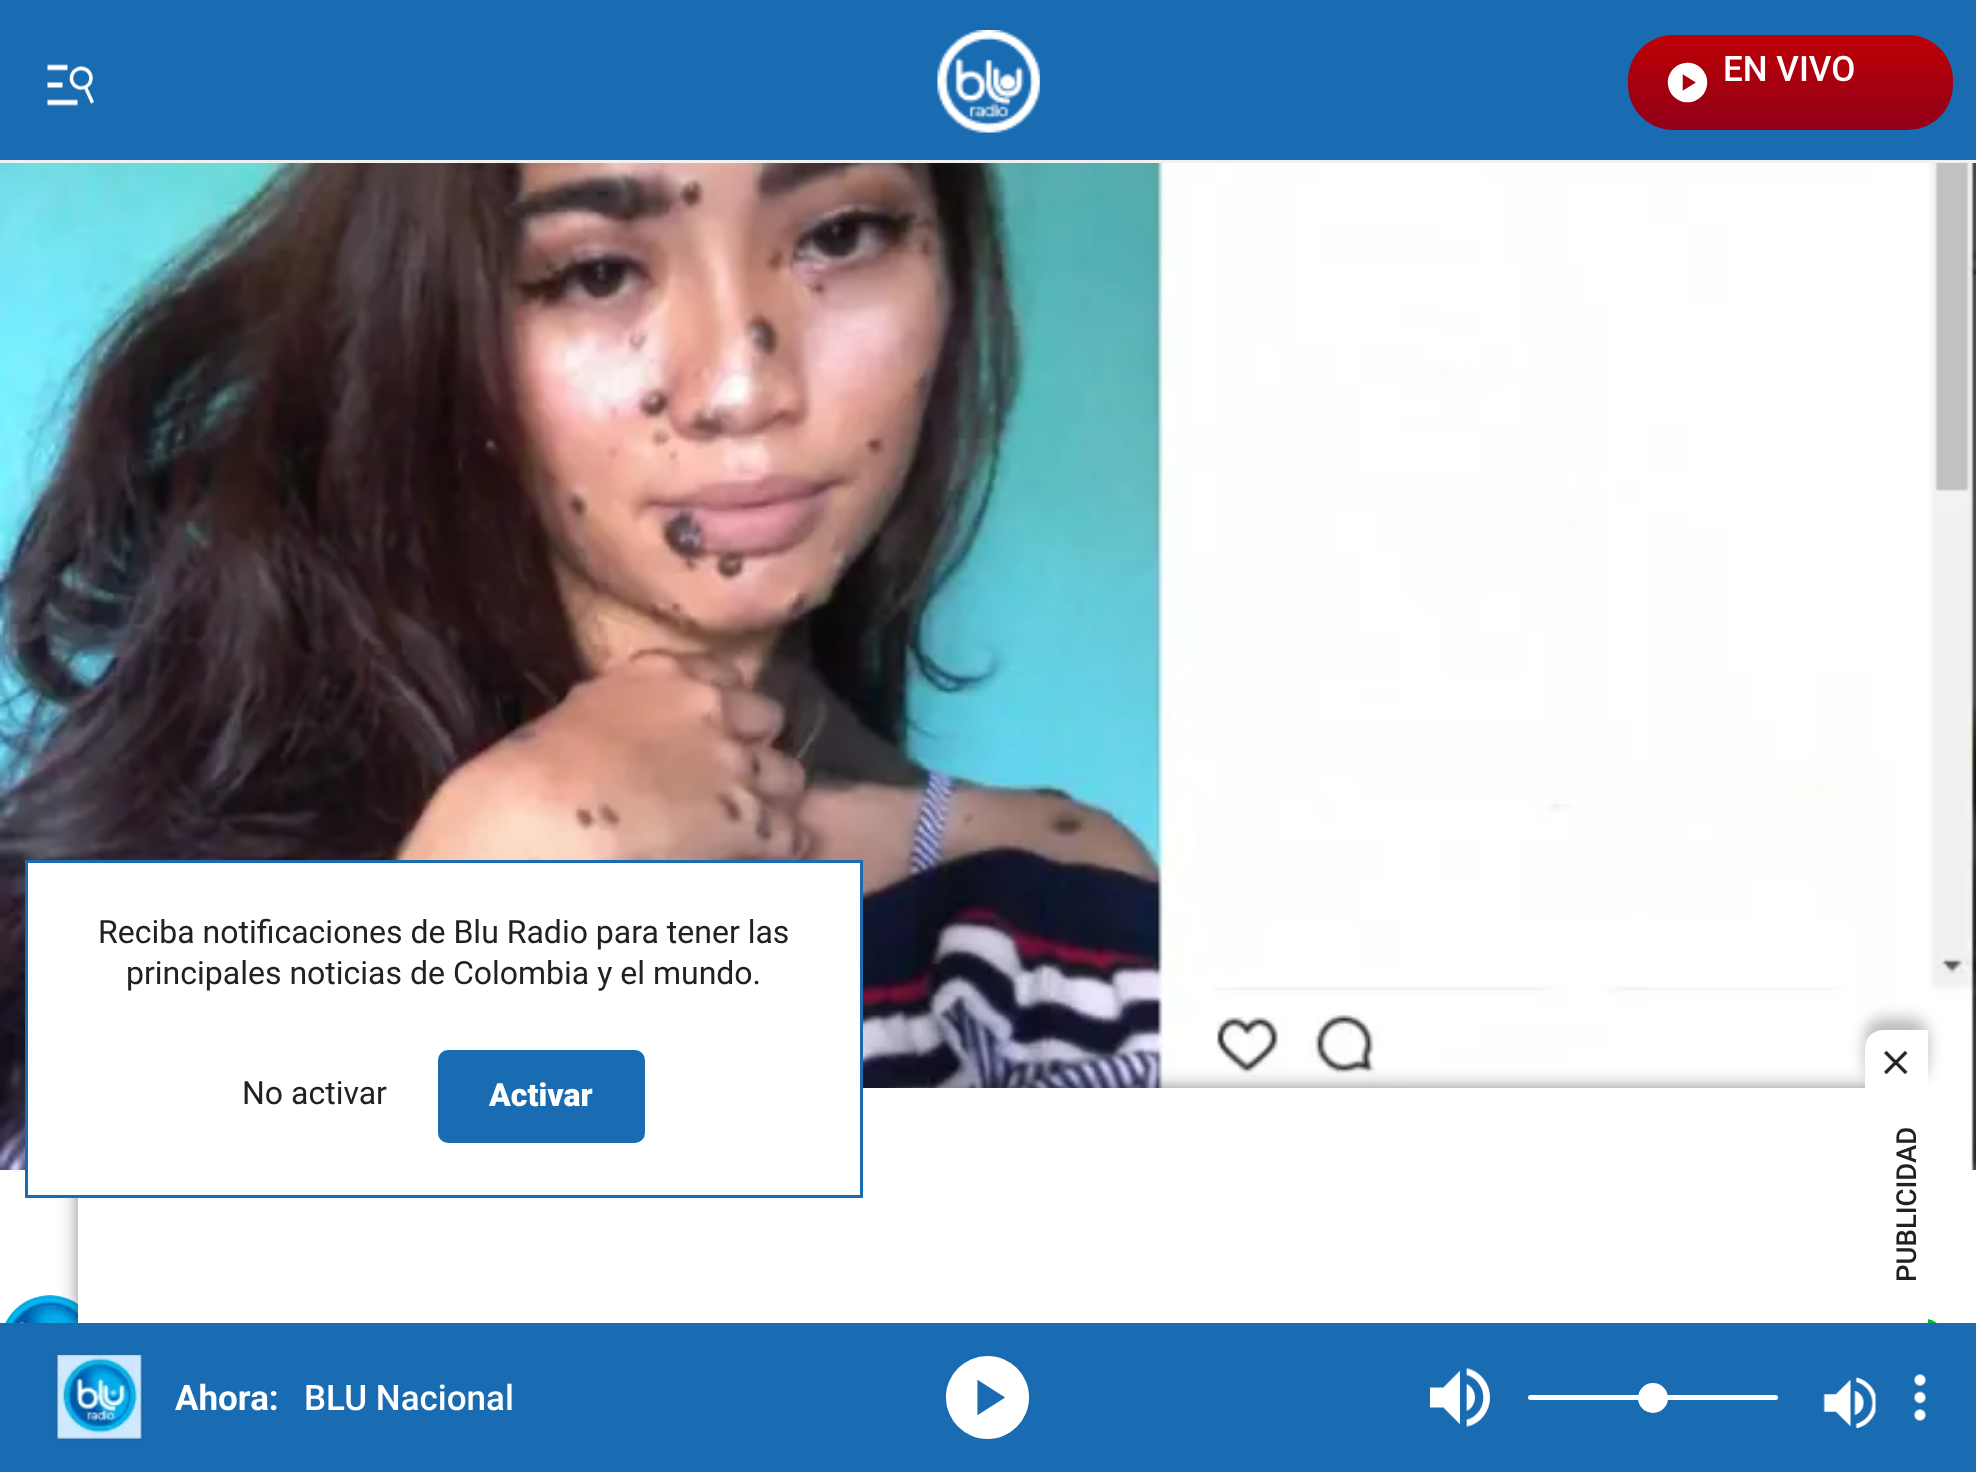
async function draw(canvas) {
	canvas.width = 1976;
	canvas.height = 1472;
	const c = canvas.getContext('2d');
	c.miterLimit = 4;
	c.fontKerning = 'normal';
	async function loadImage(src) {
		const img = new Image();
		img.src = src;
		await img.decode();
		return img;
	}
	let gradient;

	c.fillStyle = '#fff';
	c.fillRect(0, 0, 1976, 1472);
	c.fillStyle = '#196bb2';
	c.fillRect(0, 0, 1976, 160);
	c.fillStyle = '#f1f1f1';
	c.fillRect(0, 160, 1976, 3);
	c.drawImage(await loadImage('img1.png'), 47, 64, 47, 42);
	c.drawImage(await loadImage('img2.png'), 937, 30, 103, 103);
	gradient = c.createLinearGradient(1790, 35, 1790, 130);
	gradient.addColorStop(0, '#bd0005');
	gradient.addColorStop(1, '#910019');
	c.fillStyle = gradient;
	c.beginPath();
	c.roundRect(1628, 35, 325, 95, 45);
	c.fill();
	c.drawImage(await loadImage('img3.png'), 1667, 62, 41, 41);
	c.font = '500 35px Roboto';
	c.fillStyle = '#fff';
	c.fillText('EN VIVO', 1723, 81);
	c.drawImage(await loadImage('img4.png'), 0, 163, 1976, 1007);
	c.drawImage(await loadImage('img5.png'), 5, 1295, 73, 28);
	c.drawImage(await loadImage('img6.png'), 1928, 1319, 9, 4);
	c.fillStyle = '#212121';
	c.filter = 'blur(12.5px)';
	c.beginPath();
	c.rect(85, 1095, 1810, 220);
	c.fill();
	c.filter = 'none';
	c.fillStyle = '#fff';
	c.fillRect(78, 1088, 1817, 235);
	c.beginPath();
	c.rect(26.5, 861.5, 835, 335);
	c.fill();
	c.strokeStyle = '#196bb2';
	c.lineWidth = 3;
	c.stroke();
	c.font = '32px Roboto';
	c.fillStyle = '#212121';
	for (const [text, x, y] of [
		['Reciba notificaciones de Blu Radio para tener las', 98, 943],
		['principales noticias de Colombia y el mundo.', 126, 984],
		['No activar', 242, 1104],
	]) {
		c.fillText(text, x, y);
	}
	c.fillStyle = '#196bb2';
	c.beginPath();
	c.roundRect(439.5, 1051.5, 204, 90, 8.5);
	c.fill();
	c.stroke();
	c.font = '900 32px Roboto';
	c.fillStyle = '#fff';
	c.fillText('Activar', 489, 1106);
	c.fillRect(1895, 1093, 28, 230);
	c.fillStyle = '#2121214d';
	c.filter = 'blur(7.5px)';
	c.beginPath();
	c.roundRect(1865, 1018, 63, 62, 18);
	c.fill();
	c.filter = 'none';
	c.fillStyle = '#fff';
	c.beginPath();
	c.roundRect(1865, 1030, 63, 63, [18, 0, 0, 0]);
	c.fill();
	c.drawImage(await loadImage('img7.png'), 1883, 1050, 25, 25);
	c.font = '500 27.5px Roboto';
	c.fillStyle = '#212121';
	c.save();
	c.translate(1916, 1282);
	c.rotate(-90 * Math.PI / 180);
	c.fillText('PUBLICIDAD', 0, 0);
	c.restore();
	c.fillStyle = '#196bb2';
	c.fillRect(0, 1323, 1976, 149);
	c.drawImage(await loadImage('img8.png'), 55, 1353, 89, 88);
	c.font = 'bold 35px Roboto';
	c.fillStyle = '#fff';
	c.fillText('Ahora:', 175, 1410);
	c.font = '500 35px Roboto';
	c.fillText('BLU Nacional', 304, 1410);
	c.drawImage(await loadImage('img9.png'), 945, 1356, 85, 83);
	c.drawImage(await loadImage('img10.png'), 1430, 1367, 60, 60);
	c.beginPath();
	c.roundRect(1528, 1395, 250, 5, 2.5);
	c.fill();
	c.beginPath();
	c.arc(1653, 1398, 15, 0, 2 * Math.PI);
	c.fill();
	c.drawImage(await loadImage('img11.png'), 1823, 1377, 53, 51);
	c.drawImage(await loadImage('img12.png'), 1914, 1374, 12, 47);
}

draw(document.querySelector('canvas'));
